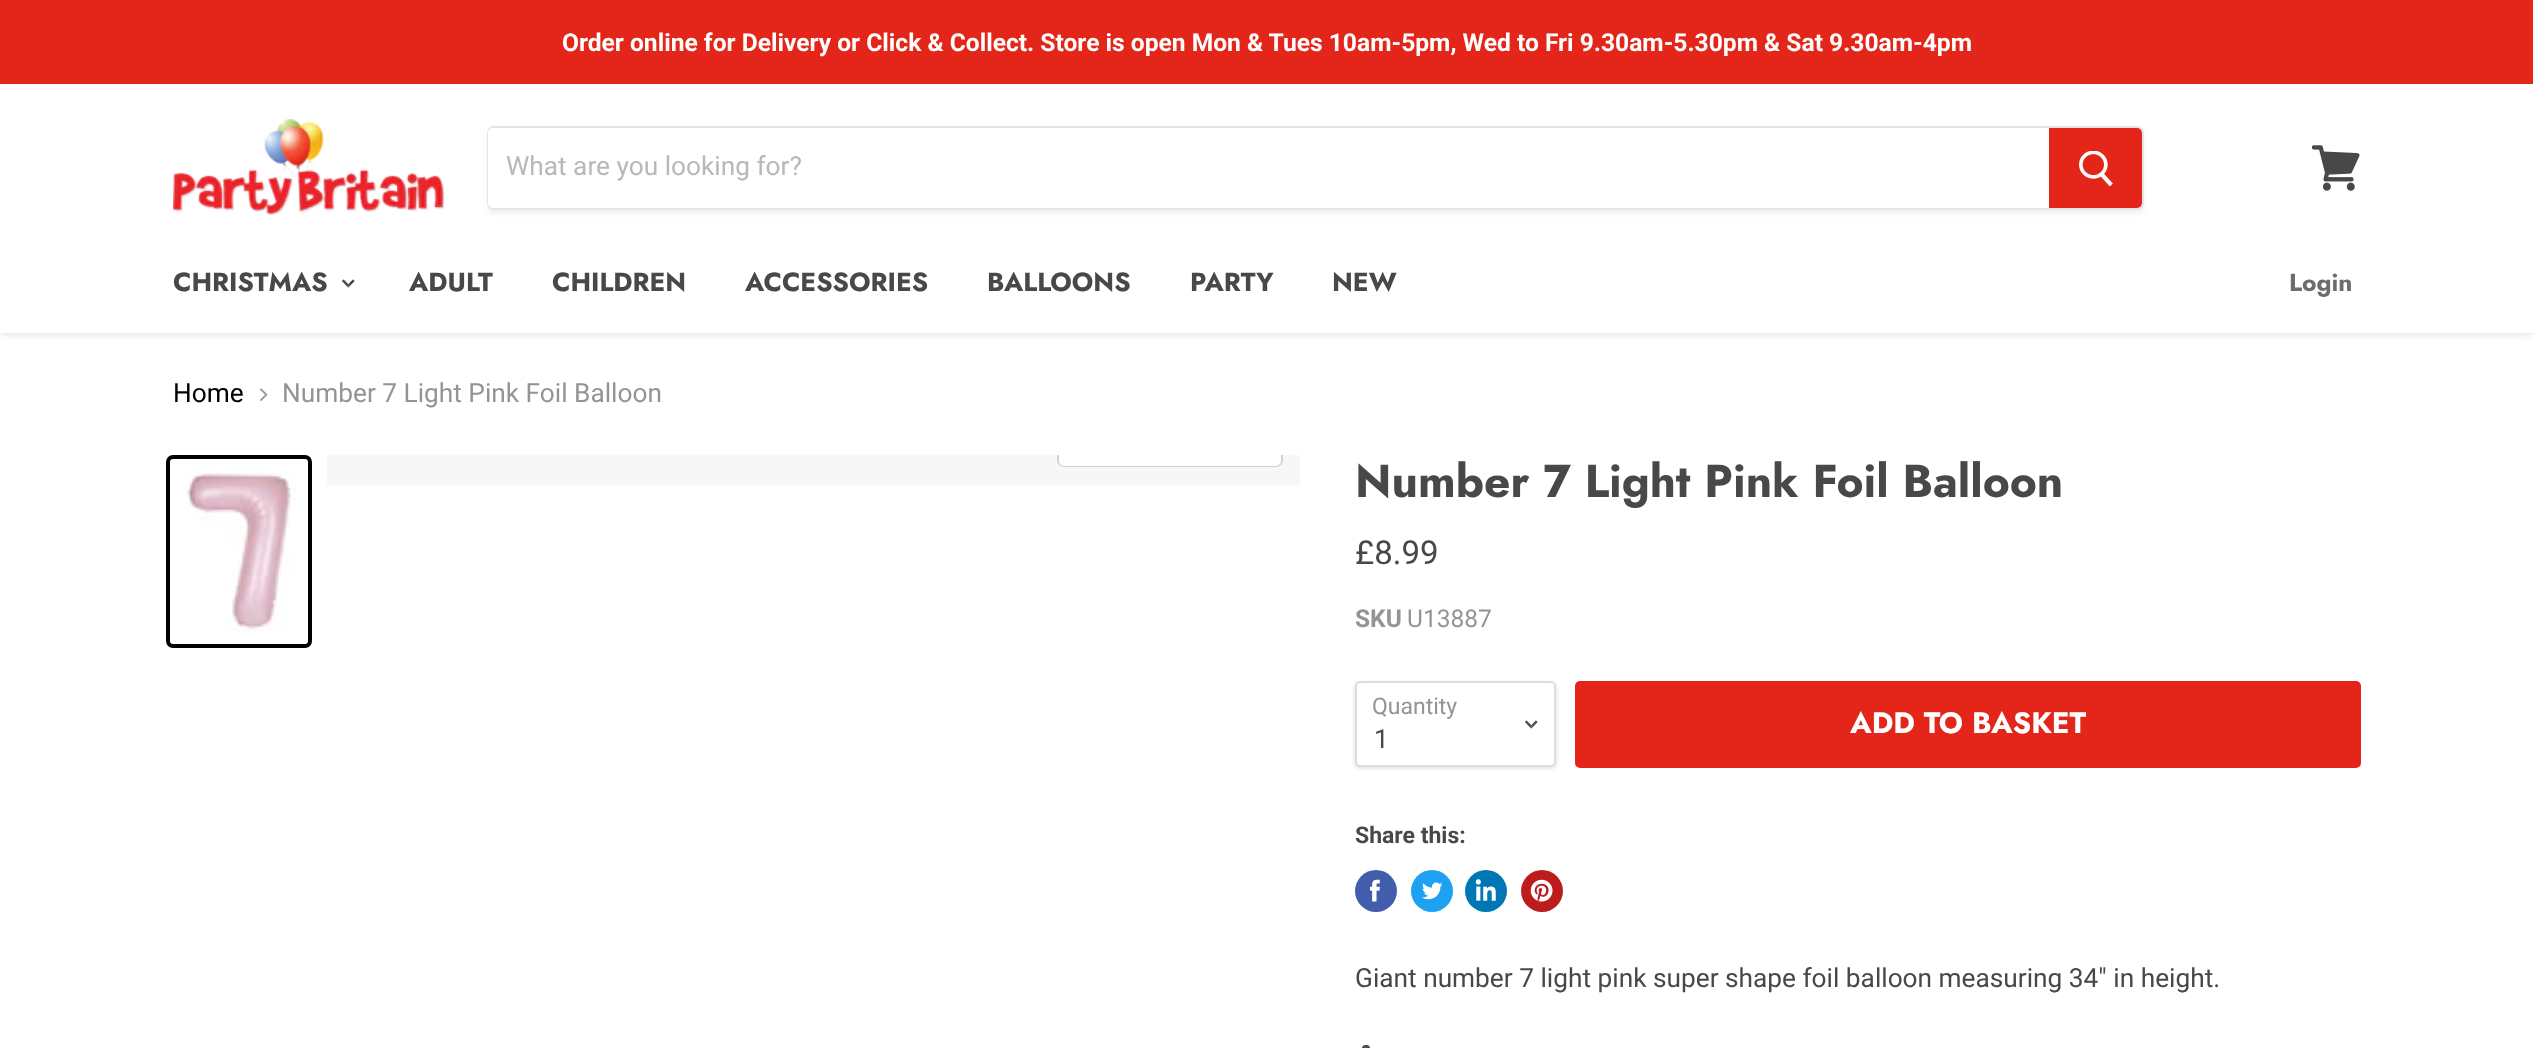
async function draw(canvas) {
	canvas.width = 2533;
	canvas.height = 1048;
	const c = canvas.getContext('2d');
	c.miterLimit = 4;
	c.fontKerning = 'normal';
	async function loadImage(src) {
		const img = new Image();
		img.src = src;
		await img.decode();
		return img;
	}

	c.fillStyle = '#fff';
	c.fillRect(0, 0, 2533, 1048);
	c.fillStyle = '#e32619';
	c.fillRect(0, 0, 2533, 84);
	c.font = 'bold 24.6px Roboto';
	c.fillStyle = '#fff';
	c.fillText('Order online for Delivery or Click & Collect. Store is open Mon & Tues 10am-5pm, Wed to Fri 9.30am-5.30pm & Sat 9.30am-4pm', 562, 51);
	c.fillStyle = '#7f7f7f40';
	c.filter = 'blur(3.5px)';
	c.beginPath();
	c.rect(0, 86, 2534, 248);
	c.fill();
	c.filter = 'none';
	c.fillStyle = '#fff';
	c.fillRect(0, 84, 2533, 249);
	c.drawImage(await loadImage('img1.png'), 173, 119, 272, 97);
	c.save();
	c.beginPath();
	c.moveTo(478, 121);
	c.lineTo(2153, 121);
	c.lineTo(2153, 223);
	c.lineTo(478, 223);
	c.closePath();
	c.moveTo(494, 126);
	c.lineTo(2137, 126);
	c.bezierCurveTo(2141, 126, 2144, 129, 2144, 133);
	c.lineTo(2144, 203);
	c.bezierCurveTo(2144, 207, 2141, 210, 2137, 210);
	c.lineTo(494, 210);
	c.bezierCurveTo(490, 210, 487, 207, 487, 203);
	c.lineTo(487, 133);
	c.bezierCurveTo(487, 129, 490, 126, 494, 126);
	c.closePath();
	c.clip('evenodd');
	c.fillStyle = '#7f7f7f1c';
	c.filter = 'blur(2.5px)';
	c.beginPath();
	c.roundRect(487, 130, 1657, 84, 7);
	c.fill();
	c.filter = 'none';
	c.restore();
	c.beginPath();
	c.roundRect(488, 127, 1655, 82, 6);
	c.strokeStyle = '#7f7f7f33';
	c.lineWidth = 2;
	c.stroke();
	c.beginPath();
	c.roundRect(488, 128, 1561, 80, [5, 0, 0, 5]);
	c.fill();
	c.font = '26.25px Roboto';
	c.fillStyle = '#b8b8b8';
	c.fillText('What are you looking for?', 506, 175);
	c.fillStyle = '#e32619';
	c.beginPath();
	c.roundRect(2050, 129, 91, 78, [0, 4, 4, 0]);
	c.fill();
	c.strokeStyle = '#e32619';
	c.stroke();
	c.drawImage(await loadImage('img2.png'), 2079, 151, 34, 36);
	c.drawImage(await loadImage('img3.png'), 2312, 145, 48, 46);
	c.font = 'bold 26.25px Jost';
	c.fillStyle = '#484848';
	c.fillText('CHRISTMAS', 173, 291);
	c.drawImage(await loadImage('img4.png'), 341, 279, 14, 9);
	for (const [text, x, y] of [
		['ADULT', 409, 291],
		['CHILDREN', 552, 291],
		['ACCESSORIES', 745, 291],
		['BALLOONS', 987, 291],
		['PARTY', 1190, 291],
		['NEW', 1332, 291],
	]) {
		c.fillText(text, x, y);
	}
	c.font = 'bold 24.6px Jost';
	c.fillStyle = '#6d6d6d';
	c.fillText('Login', 2289, 291);
	c.font = '26.25px Roboto';
	c.fillStyle = '#000';
	c.fillText('Home', 173, 402);
	c.drawImage(await loadImage('img5.png'), 260, 388, 8, 13);
	c.fillStyle = '#949494';
	c.fillText('Number 7 Light Pink Foil Balloon', 282, 402);
	c.beginPath();
	c.roundRect(168, 457, 142, 189, 5);
	c.strokeStyle = '#000';
	c.lineWidth = 4;
	c.stroke();
	c.drawImage(await loadImage('img6.png'), 187, 467, 110, 166);
	c.fillStyle = '#f7f7f7';
	c.fillRect(327, 455, 973, 30);
	c.save();
	c.beginPath();
	c.rect(327, 455, 973, 30);
	c.clip();
	c.beginPath();
	c.roundRect(1058, 418, 224, 48, 6);
	c.strokeStyle = '#d2d2d2';
	c.lineWidth = 2;
	c.stroke();
	c.restore();
	c.fillStyle = '#ffffffe6';
	c.beginPath();
	c.roundRect(1059, 455, 222, 11, [0, 0, 5, 5]);
	c.fill();
	c.font = 'bold 46px Jost';
	c.fillStyle = '#484848';
	c.fillText('Number 7 Light Pink Foil Balloon', 1355, 497);
	c.font = '33px Roboto';
	c.fillText('£8.99', 1355, 564);
	c.font = 'bold 24.5px Roboto';
	c.fillStyle = '#949494';
	c.fillText('SKU', 1355, 627);
	c.font = '24.5px Roboto';
	c.fillText('U13887', 1407, 627);
	c.fillStyle = '#00000026';
	c.filter = 'blur(2px)';
	c.beginPath();
	c.roundRect(1355, 683, 201, 85, 5);
	c.fill();
	c.filter = 'none';
	c.fillStyle = '#fff';
	c.beginPath();
	c.roundRect(1356, 682, 199, 84, 4);
	c.fill();
	c.strokeStyle = '#ddd';
	c.lineWidth = 2;
	c.stroke();
	c.font = '23px Roboto';
	c.fillStyle = '#949494';
	c.fillText('Quantity', 1372, 714);
	c.drawImage(await loadImage('img7.png'), 1524, 720, 14, 9);
	c.font = '26.25px Roboto';
	c.fillStyle = '#484848';
	c.fillText('1', 1374, 748);
	c.fillStyle = '#e32619';
	c.beginPath();
	c.roundRect(1576, 682, 784, 85, 4);
	c.fill();
	c.strokeStyle = '#e32619';
	c.stroke();
	c.font = 'bold 29.5px Jost';
	c.fillStyle = '#fff';
	c.fillText('ADD TO BASKET', 1850, 733);
	c.font = 'bold 23px Roboto';
	c.fillStyle = '#484848';
	c.fillText('Share this:', 1355, 843);
	c.fillStyle = '#425dab';
	c.beginPath();
	c.arc(1376, 891, 21, 0, 2 * Math.PI);
	c.fill();
	c.drawImage(await loadImage('img8.png'), 1370, 879, 10, 23);
	c.fillStyle = '#1da1f2';
	c.beginPath();
	c.arc(1432, 891, 21, 0, 2 * Math.PI);
	c.fill();
	c.drawImage(await loadImage('img9.png'), 1422, 882, 21, 18);
	c.fillStyle = '#0077b5';
	c.beginPath();
	c.arc(1486, 891, 21, 0, 2 * Math.PI);
	c.fill();
	c.drawImage(await loadImage('img10.png'), 1475, 879, 21, 22);
	c.fillStyle = '#bd1c1c';
	c.beginPath();
	c.arc(1542, 891, 21, 0, 2 * Math.PI);
	c.fill();
	c.drawImage(await loadImage('img11.png'), 1530, 879, 23, 23);
	c.font = '26.25px Roboto';
	c.fillStyle = '#484848';
	c.fillText('Giant number 7 light pink super shape foil balloon measuring 34" in height.', 1355, 987);
	c.fillStyle = '#4d4d4d';
	c.beginPath();
	c.roundRect(1362, 1045, 8, 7, 4);
	c.fill();
}

draw(document.querySelector('canvas'));
